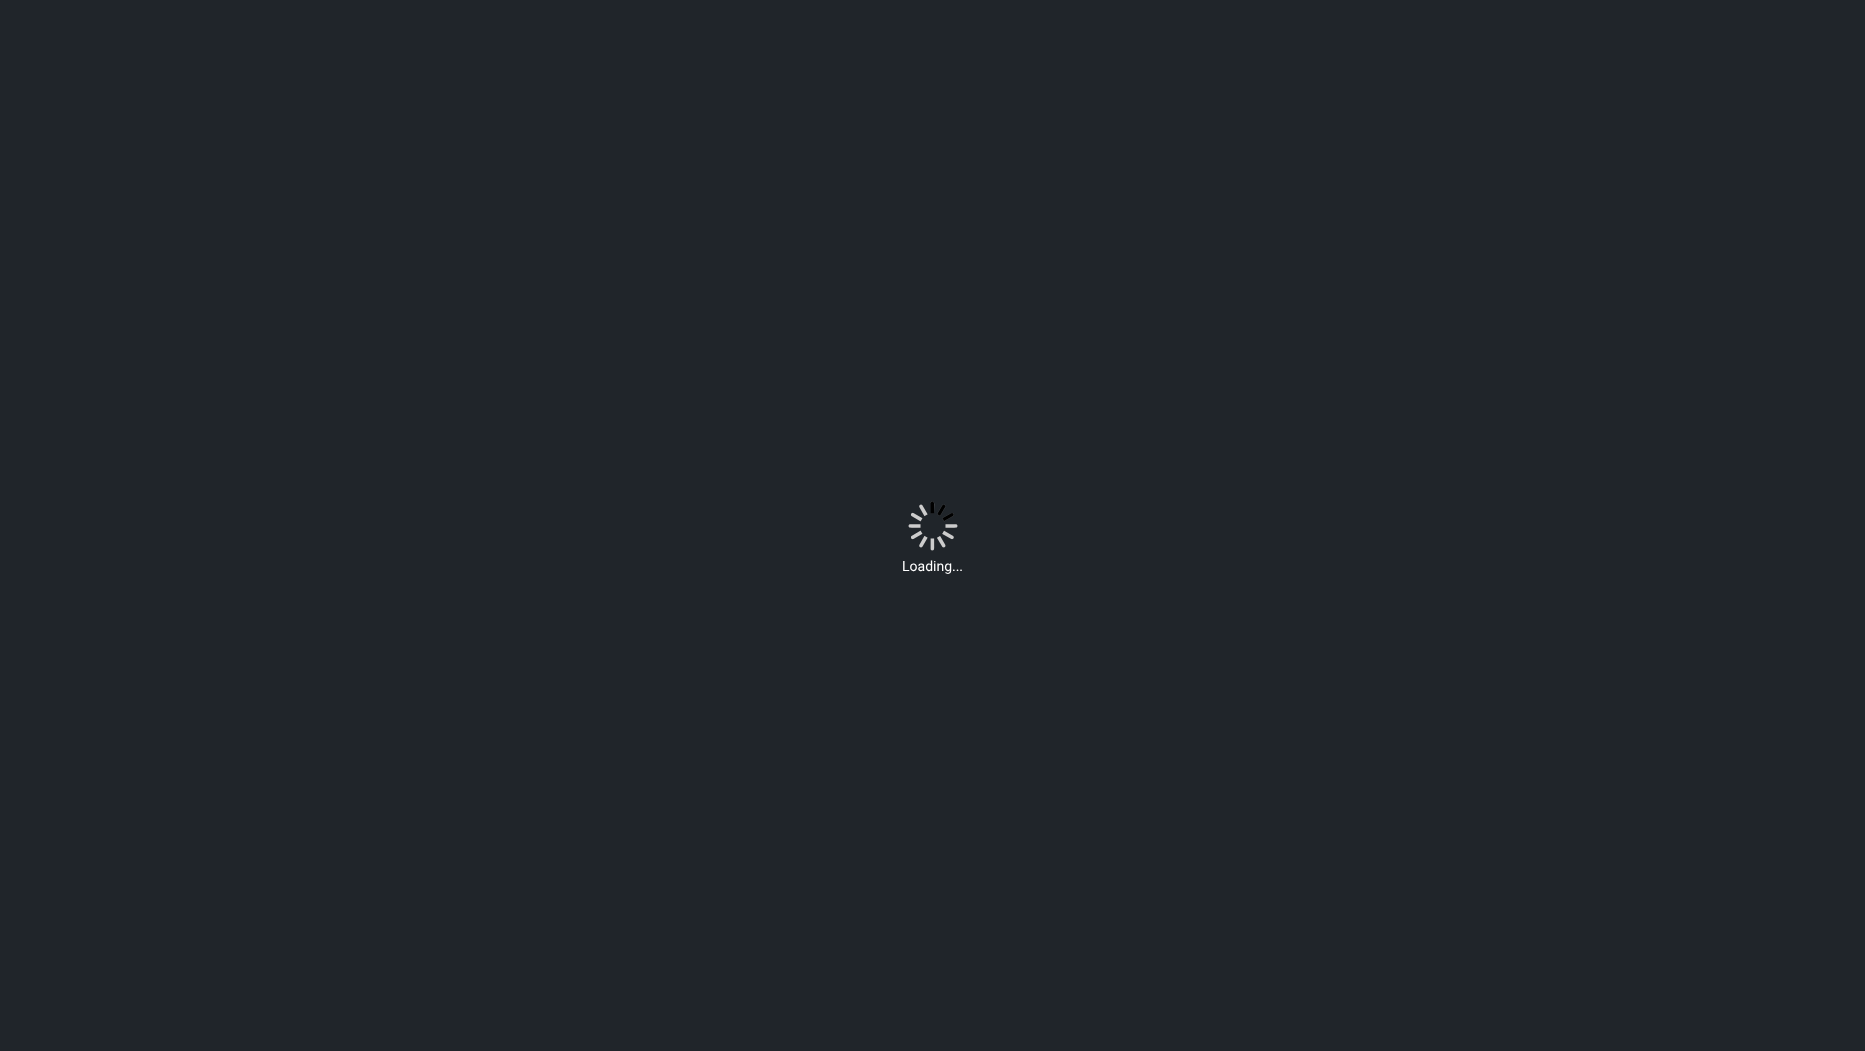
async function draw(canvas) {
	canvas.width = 1865;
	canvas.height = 1051;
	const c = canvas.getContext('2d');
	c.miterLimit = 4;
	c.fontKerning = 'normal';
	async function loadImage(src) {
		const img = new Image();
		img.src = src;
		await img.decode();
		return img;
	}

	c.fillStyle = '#20252a';
	c.fillRect(0, 0, 1865, 1051);
	c.drawImage(await loadImage('img1.png'), 908, 501, 50, 50);
	c.font = '14px Roboto';
	c.fillStyle = '#fff';
	c.fillText('Loading...', 902, 571);
}

draw(document.querySelector('canvas'));
